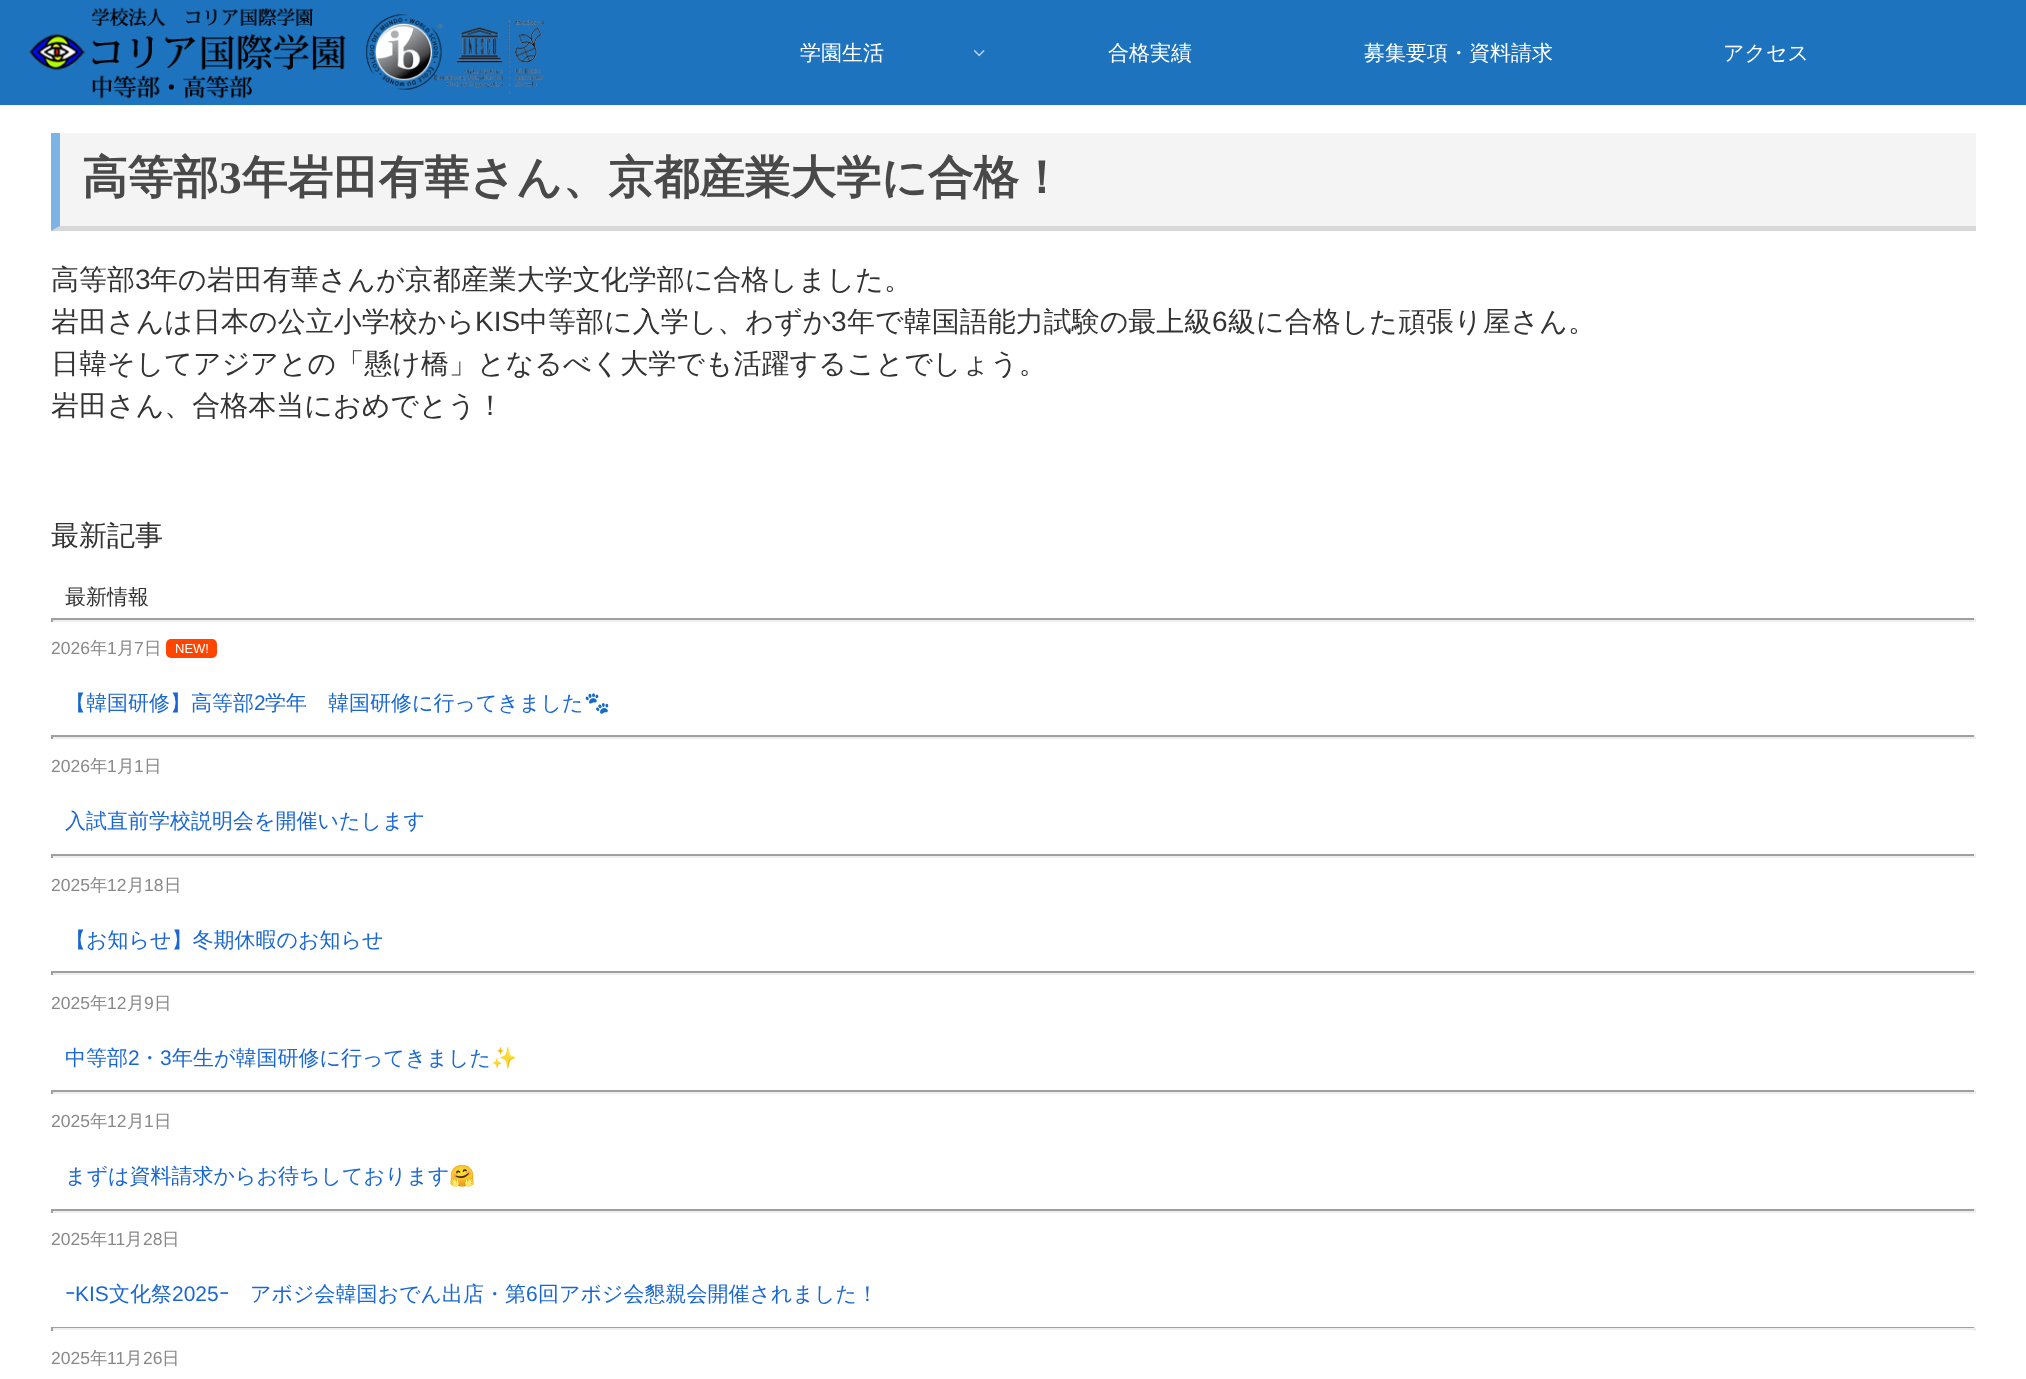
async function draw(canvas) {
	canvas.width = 2026;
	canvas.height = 1379;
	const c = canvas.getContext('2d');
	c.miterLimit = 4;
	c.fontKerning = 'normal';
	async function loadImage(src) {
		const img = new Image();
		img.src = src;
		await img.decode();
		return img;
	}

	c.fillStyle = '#fff';
	c.fillRect(0, 0, 2026, 1379);
	c.fillStyle = '#1e73be';
	c.fillRect(0, 0, 2026, 105);
	c.drawImage(await loadImage('img1.png'), 29, 7, 515, 92);
	c.font = '500 21px WenQuanYi Zen Hei';
	c.fillStyle = '#fff';
	c.fillText('学園生活', 800, 60);
	c.drawImage(await loadImage('img2.png'), 973, 50, 12, 7);
	c.fillText('合格実績', 1108, 60);
	c.save();
	c.beginPath();
	c.rect(1304, 42, 308, 21);
	c.clip();
	c.fillText('募集要項・資料請求', 1364, 60);
	c.restore();
	c.fillText('アクセス', 1723, 60);
	c.fillStyle = '#f4f4f4';
	c.fillRect(51, 133, 1925, 98);
	c.fillStyle = '#d7d7d7';
	c.beginPath();
	c.moveTo(1976, 231);
	c.lineTo(51, 231);
	c.lineTo(60, 226);
	c.lineTo(1976, 226);
	c.closePath();
	c.fill();
	c.fillStyle = '#7db4e6';
	c.beginPath();
	c.moveTo(51, 231);
	c.lineTo(51, 133);
	c.lineTo(60, 133);
	c.lineTo(60, 226);
	c.closePath();
	c.fill();
	c.font = 'bold 45.5px WenQuanYi Zen Hei';
	c.fillStyle = '#494949';
	c.fillText('高等部', 82, 193);
	c.font = 'bold 45.5px Liberation Serif';
	c.fillText('3', 219, 193);
	c.font = 'bold 45.5px WenQuanYi Zen Hei';
	c.fillText('年岩田有華さん、京都産業大学に合格！', 242, 193);
	c.font = '500 28px WenQuanYi Zen Hei';
	c.fillStyle = '#333';
	c.fillText('高等部', 51, 289);
	c.font = '28px Liberation Sans';
	c.fillText('3', 135, 289);
	c.font = '500 28px WenQuanYi Zen Hei';
	c.fillText('年の岩田有華さんが京都産業大学文化学部に合格しました。', 150, 289);
	c.fillText('岩田さんは日本の公立小学校から', 51, 331);
	c.font = '28px Liberation Sans';
	c.fillText('KIS', 475, 331);
	c.font = '500 28px WenQuanYi Zen Hei';
	c.fillText('中等部に入学し、わずか', 520, 331);
	c.font = '28px Liberation Sans';
	c.fillText('3', 831, 331);
	c.font = '500 28px WenQuanYi Zen Hei';
	c.fillText('年で韓国語能力試験の最上級', 847, 331);
	c.font = '28px Liberation Sans';
	c.fillText('6', 1212, 331);
	c.font = '500 28px WenQuanYi Zen Hei';
	for (const [text, x, y] of [
		['級に合格した頑張り屋さん。', 1228, 331],
		['日韓そしてアジアとの「懸け橋」となるべく大学でも活躍することでしょう。', 51, 373],
		['岩田さん、合格本当におめでとう！', 51, 415],
		['最新記事', 51, 545],
	]) {
		c.fillText(text, x, y);
	}
	c.font = '500 21px WenQuanYi Zen Hei';
	c.fillText('最新情報', 65, 604);
	for (const [x, y, w, h, color] of [
		[51, 618, 1925, 2, '#9f9f9f'],
		[1974, 618, 2, 4, '#eee'],
		[51, 620, 1925, 2, '#eee'],
		[51, 618, 2, 4, '#9f9f9f'],
	]) {
		c.fillStyle = color;
		c.fillRect(x, y, w, h);
	}
	c.font = '17.5px Liberation Sans';
	c.fillStyle = '#888';
	c.fillText('2026', 51, 654);
	c.font = '500 17.5px WenQuanYi Zen Hei';
	c.fillText('年', 90, 654);
	c.font = '17.5px Liberation Sans';
	c.fillText('1', 107, 654);
	c.font = '500 17.5px WenQuanYi Zen Hei';
	c.fillText('月', 117, 654);
	c.font = '17.5px Liberation Sans';
	c.fillText('7', 134, 654);
	c.font = '500 17.5px WenQuanYi Zen Hei';
	c.fillText('日', 144, 654);
	c.fillStyle = '#ff4500';
	c.beginPath();
	c.roundRect(166, 639, 51, 19, 5);
	c.fill();
	c.font = '13px Liberation Sans';
	c.fillStyle = '#fff';
	c.fillText('NEW!', 175, 653);
	c.font = '500 21px WenQuanYi Zen Hei';
	c.fillStyle = '#1967d2';
	c.fillText('【韓国研修】高等部', 65, 710);
	c.font = '21px Liberation Sans';
	c.fillText('2', 254, 710);
	c.font = '500 21px WenQuanYi Zen Hei';
	c.fillText('学年　韓国研修に行ってきました', 265, 710);
	c.font = '21px Noto Color Emoji';
	c.fillText('🐾', 584, 710);
	for (const [x, y, w, h, color] of [
		[51, 735, 1925, 2, '#9f9f9f'],
		[1974, 735, 2, 4, '#eee'],
		[51, 737, 1925, 2, '#eee'],
		[51, 735, 2, 4, '#9f9f9f'],
	]) {
		c.fillStyle = color;
		c.fillRect(x, y, w, h);
	}
	c.font = '17.5px Liberation Sans';
	c.fillStyle = '#888';
	c.fillText('2026', 51, 772);
	c.font = '500 17.5px WenQuanYi Zen Hei';
	c.fillText('年', 90, 772);
	c.font = '17.5px Liberation Sans';
	c.fillText('1', 107, 772);
	c.font = '500 17.5px WenQuanYi Zen Hei';
	c.fillText('月', 117, 772);
	c.font = '17.5px Liberation Sans';
	c.fillText('1', 134, 772);
	c.font = '500 17.5px WenQuanYi Zen Hei';
	c.fillText('日', 144, 772);
	c.font = '500 21px WenQuanYi Zen Hei';
	c.fillStyle = '#1967d2';
	c.fillText('入試直前学校説明会を開催いたします', 65, 828);
	for (const [x, y, w, h, color] of [
		[51, 854, 1925, 2, '#9f9f9f'],
		[1974, 854, 2, 4, '#eee'],
		[51, 856, 1925, 2, '#eee'],
		[51, 854, 2, 4, '#9f9f9f'],
	]) {
		c.fillStyle = color;
		c.fillRect(x, y, w, h);
	}
	c.font = '17.5px Liberation Sans';
	c.fillStyle = '#888';
	c.fillText('2025', 51, 891);
	c.font = '500 17.5px WenQuanYi Zen Hei';
	c.fillText('年', 90, 891);
	c.font = '17.5px Liberation Sans';
	c.fillText('12', 107, 891);
	c.font = '500 17.5px WenQuanYi Zen Hei';
	c.fillText('月', 127, 891);
	c.font = '17.5px Liberation Sans';
	c.fillText('18', 144, 891);
	c.font = '500 17.5px WenQuanYi Zen Hei';
	c.fillText('日', 164, 891);
	c.font = '500 21px WenQuanYi Zen Hei';
	c.fillStyle = '#1967d2';
	c.fillText('【お知らせ】冬期休暇のお知らせ', 65, 947);
	for (const [x, y, w, h, color] of [
		[51, 971, 1925, 2, '#9f9f9f'],
		[1974, 971, 2, 4, '#eee'],
		[51, 973, 1925, 2, '#eee'],
		[51, 971, 2, 4, '#9f9f9f'],
	]) {
		c.fillStyle = color;
		c.fillRect(x, y, w, h);
	}
	c.font = '17.5px Liberation Sans';
	c.fillStyle = '#888';
	c.fillText('2025', 51, 1009);
	c.font = '500 17.5px WenQuanYi Zen Hei';
	c.fillText('年', 90, 1009);
	c.font = '17.5px Liberation Sans';
	c.fillText('12', 107, 1009);
	c.font = '500 17.5px WenQuanYi Zen Hei';
	c.fillText('月', 127, 1009);
	c.font = '17.5px Liberation Sans';
	c.fillText('9', 144, 1009);
	c.font = '500 17.5px WenQuanYi Zen Hei';
	c.fillText('日', 154, 1009);
	c.font = '500 21px WenQuanYi Zen Hei';
	c.fillStyle = '#1967d2';
	c.fillText('中等部', 65, 1065);
	c.font = '21px Liberation Sans';
	c.fillText('2', 128, 1065);
	c.font = '500 21px WenQuanYi Zen Hei';
	c.fillText('・', 139, 1065);
	c.font = '21px Liberation Sans';
	c.fillText('3', 160, 1065);
	c.font = '500 21px WenQuanYi Zen Hei';
	c.fillText('年生が韓国研修に行ってきました', 172, 1065);
	c.font = '21px Noto Color Emoji';
	c.fillText('✨', 491, 1065);
	for (const [x, y, w, h, color] of [
		[51, 1090, 1925, 2, '#9f9f9f'],
		[1974, 1090, 2, 4, '#eee'],
		[51, 1092, 1925, 2, '#eee'],
		[51, 1090, 2, 4, '#9f9f9f'],
	]) {
		c.fillStyle = color;
		c.fillRect(x, y, w, h);
	}
	c.font = '17.5px Liberation Sans';
	c.fillStyle = '#888';
	c.fillText('2025', 51, 1127);
	c.font = '500 17.5px WenQuanYi Zen Hei';
	c.fillText('年', 90, 1127);
	c.font = '17.5px Liberation Sans';
	c.fillText('12', 107, 1127);
	c.font = '500 17.5px WenQuanYi Zen Hei';
	c.fillText('月', 127, 1127);
	c.font = '17.5px Liberation Sans';
	c.fillText('1', 144, 1127);
	c.font = '500 17.5px WenQuanYi Zen Hei';
	c.fillText('日', 154, 1127);
	c.font = '500 21px WenQuanYi Zen Hei';
	c.fillStyle = '#1967d2';
	c.fillText('まずは資料請求からお待ちしております', 65, 1183);
	c.font = '21px Noto Color Emoji';
	c.fillText('🤗', 449, 1183);
	for (const [x, y, w, h, color] of [
		[51, 1209, 1925, 2, '#9f9f9f'],
		[1974, 1209, 2, 4, '#eee'],
		[51, 1211, 1925, 2, '#eee'],
		[51, 1209, 2, 4, '#9f9f9f'],
	]) {
		c.fillStyle = color;
		c.fillRect(x, y, w, h);
	}
	c.font = '17.5px Liberation Sans';
	c.fillStyle = '#888';
	c.fillText('2025', 51, 1245);
	c.font = '500 17.5px WenQuanYi Zen Hei';
	c.fillText('年', 90, 1245);
	c.font = '17.5px Liberation Sans';
	c.fillText('11', 107, 1245);
	c.font = '500 17.5px WenQuanYi Zen Hei';
	c.fillText('月', 125, 1245);
	c.font = '17.5px Liberation Sans';
	c.fillText('28', 143, 1245);
	c.font = '500 17.5px WenQuanYi Zen Hei';
	c.fillText('日', 162, 1245);
	c.font = '21px IPAPGothic';
	c.fillStyle = '#1967d2';
	c.fillText('ｰ', 65, 1301);
	c.font = '21px Liberation Sans';
	c.fillText('KIS', 75, 1301);
	c.font = '500 21px WenQuanYi Zen Hei';
	c.fillText('文化祭', 109, 1301);
	c.font = '21px Liberation Sans';
	c.fillText('2025', 172, 1301);
	c.font = '21px IPAPGothic';
	c.fillText('ｰ', 219, 1301);
	c.font = '500 21px WenQuanYi Zen Hei';
	c.fillText('アボジ会韓国おでん出店・第', 250, 1301);
	c.font = '21px Liberation Sans';
	c.fillText('6', 526, 1301);
	c.font = '500 21px WenQuanYi Zen Hei';
	c.fillText('回アボジ会懇親会開催されました！', 538, 1301);
	for (const [x, y, w, h, color] of [
		[51, 1327, 1925, 1, '#9f9f9f'],
		[1974, 1327, 2, 4, '#eee'],
		[51, 1328, 1925, 2, '#eee'],
		[51, 1327, 2, 4, '#9f9f9f'],
	]) {
		c.fillStyle = color;
		c.fillRect(x, y, w, h);
	}
	c.font = '17.5px Liberation Sans';
	c.fillStyle = '#888';
	c.fillText('2025', 51, 1364);
	c.font = '500 17.5px WenQuanYi Zen Hei';
	c.fillText('年', 90, 1364);
	c.font = '17.5px Liberation Sans';
	c.fillText('11', 107, 1364);
	c.font = '500 17.5px WenQuanYi Zen Hei';
	c.fillText('月', 125, 1364);
	c.font = '17.5px Liberation Sans';
	c.fillText('26', 143, 1364);
	c.font = '500 17.5px WenQuanYi Zen Hei';
	c.fillText('日', 162, 1364);
}

draw(document.querySelector('canvas'));
